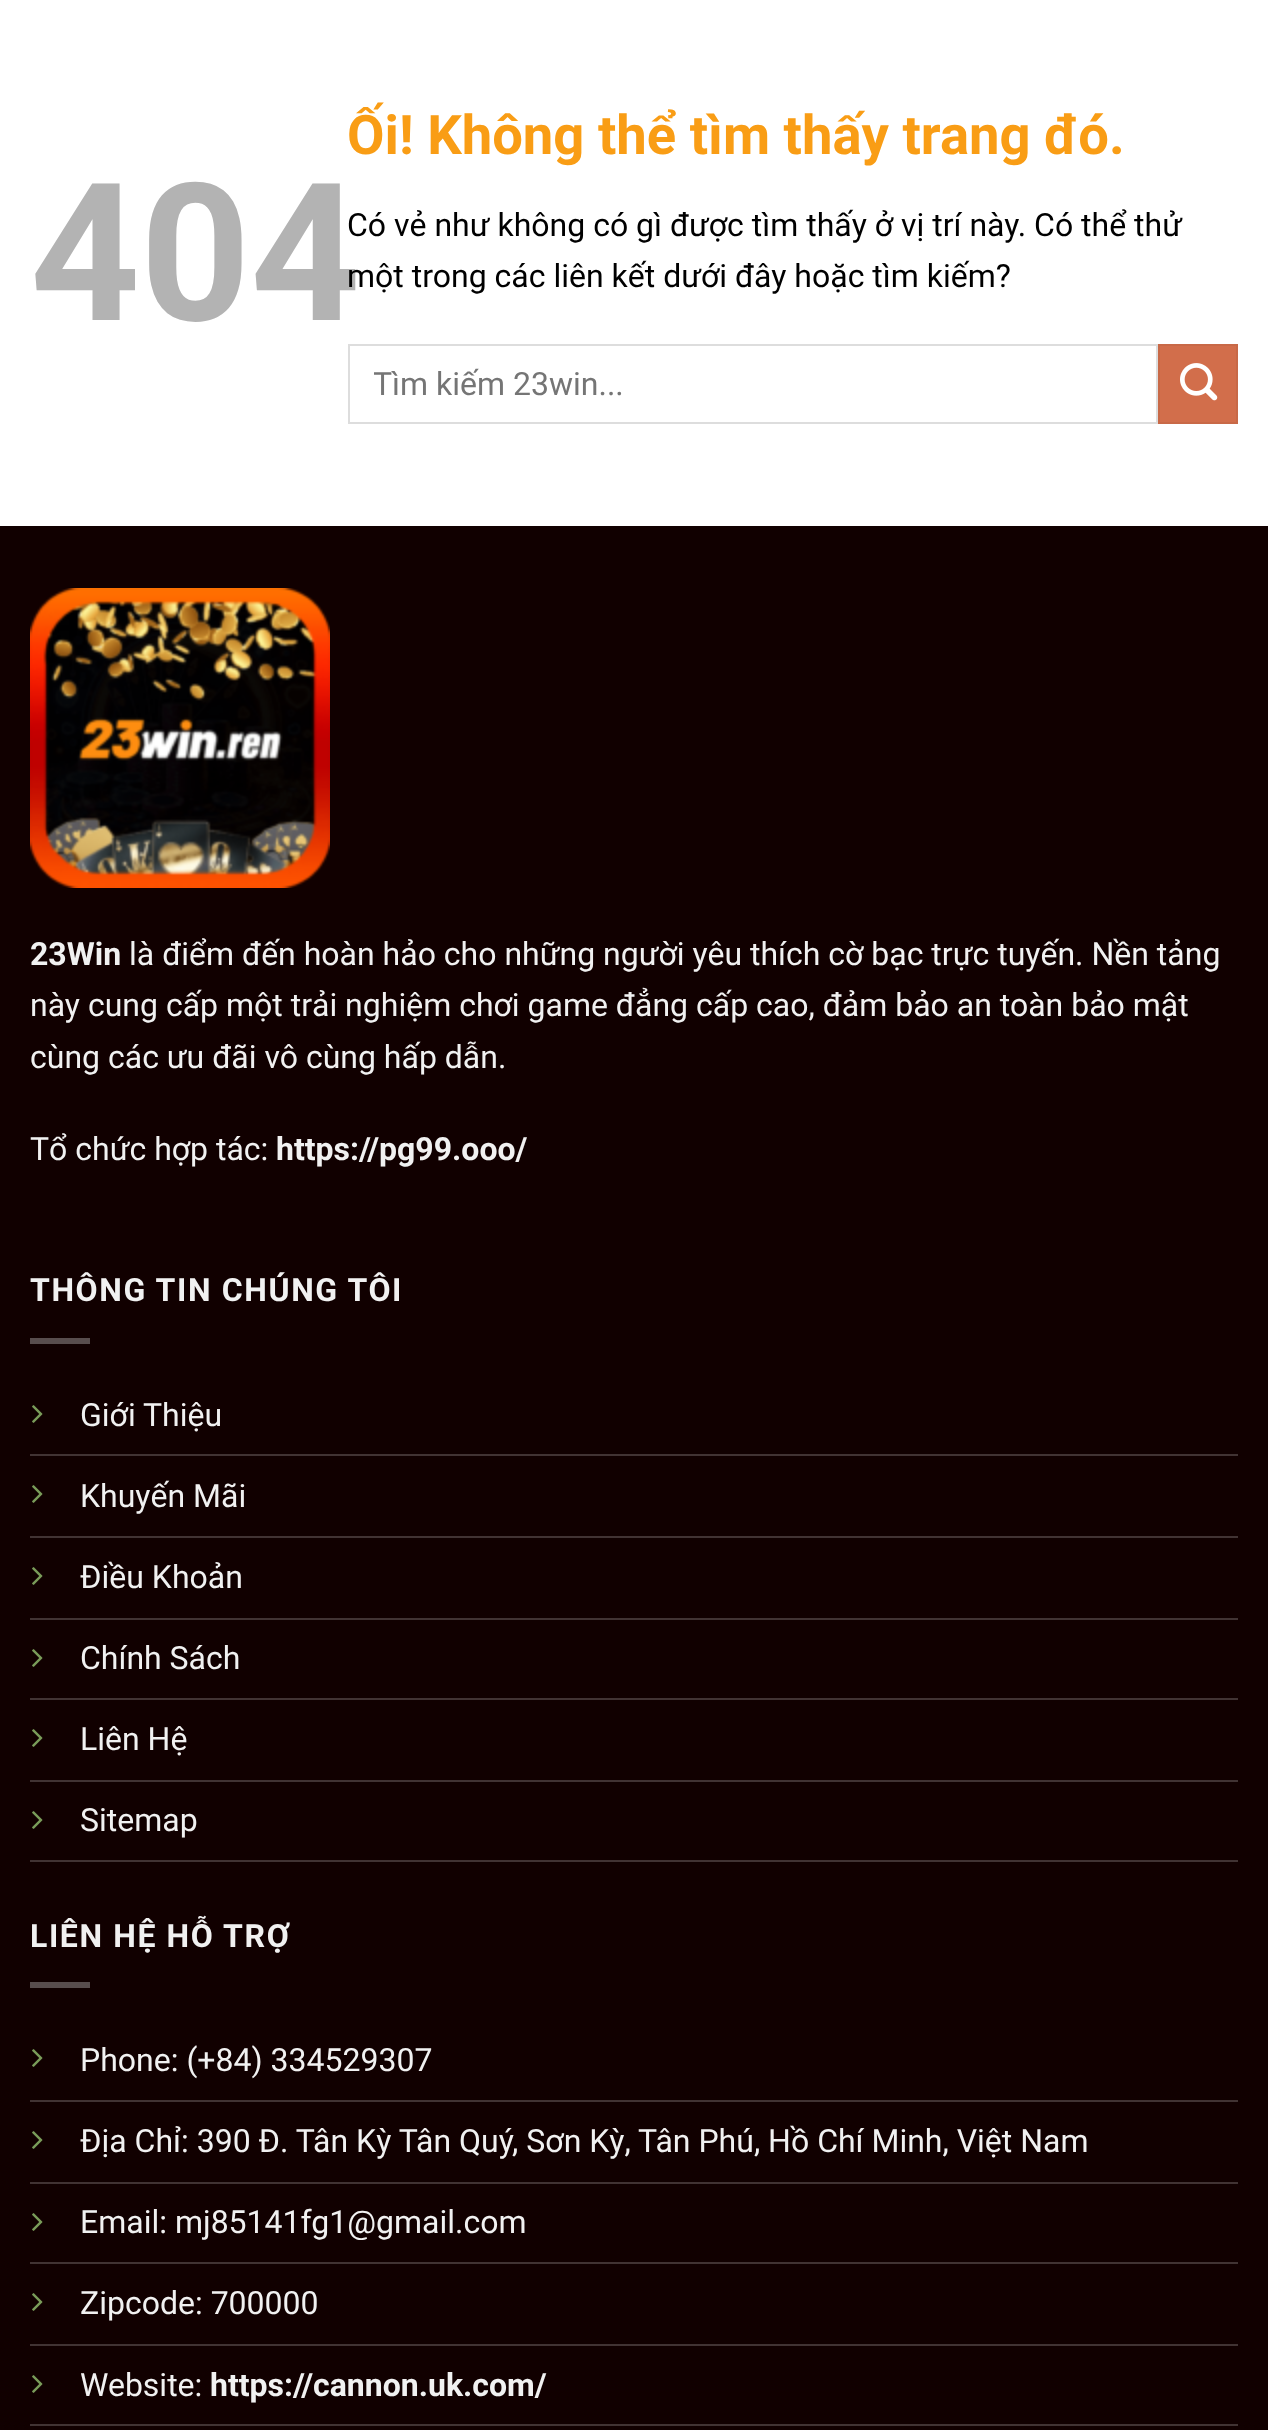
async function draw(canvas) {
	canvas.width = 1268;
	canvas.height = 2430;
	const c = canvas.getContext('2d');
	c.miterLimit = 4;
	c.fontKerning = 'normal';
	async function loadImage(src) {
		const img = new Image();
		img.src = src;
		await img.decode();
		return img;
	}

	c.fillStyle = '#fff';
	c.fillRect(0, 0, 1268, 2430);
	c.font = 'bold 192px Roboto';
	c.fillStyle = '#b3b3b3';
	c.fillText('404', 30, 320);
	c.font = 'bold 54.4px Roboto';
	c.fillStyle = '#f99d15';
	c.fillText('Ối! Không thể tìm thấy trang đó.', 347, 154);
	c.font = '32px Roboto';
	c.fillStyle = '#000';
	c.fillText('Có vẻ như không có gì được tìm thấy ở vị trí này. Có thể thử', 347, 236);
	c.fillText('một trong các liên kết dưới đây hoặc tìm kiếm?', 347, 287);
	c.strokeStyle = '#ddd';
	c.lineWidth = 2;
	c.strokeRect(349, 345, 808, 78);
	c.save();
	c.beginPath();
	c.rect(374, 364, 750, 38);
	c.clip();
	c.fillStyle = '#757575';
	c.fillText('Tìm kiếm 23win...', 373, 395);
	c.restore();
	c.fillStyle = '#d26e4b';
	c.beginPath();
	c.rect(1159, 345, 78, 78);
	c.fill();
	c.strokeStyle = '#c86947';
	c.stroke();
	c.drawImage(await loadImage('img1.png'), 1180, 363, 38, 38);
	c.fillStyle = '#100';
	c.fillRect(0, 526, 1268, 1904);
	c.drawImage(await loadImage('img2.png'), 30, 588, 300, 300);
	c.font = 'bold 32px Roboto';
	c.fillStyle = '#f1f1f1';
	c.fillText('23Win', 30, 965);
	c.font = '32px Roboto';
	for (const [text, x, y] of [
		['là điểm đến hoàn hảo cho những người yêu thích cờ bạc trực tuyến. Nền tảng', 129, 965],
		['này cung cấp một trải nghiệm chơi game đẳng cấp cao, đảm bảo an toàn bảo mật', 30, 1016],
		['cùng các ưu đãi vô cùng hấp dẫn.', 30, 1068],
		['Tổ chức hợp tác:', 30, 1160],
	]) {
		c.fillText(text, x, y);
	}
	c.font = 'bold 32px Roboto';
	c.fillText('https://pg99.ooo/', 276, 1160);
	c.letterSpacing = '1.6px';
	c.fillText('THÔNG TIN CHÚNG TÔI', 30, 1301);
	c.fillStyle = '#584d4d';
	c.fillRect(30, 1338, 60, 6);
	c.fillStyle = '#413333';
	c.fillRect(30, 1454, 1208, 2);
	c.drawImage(await loadImage('img3.png'), 32, 1405, 11, 18);
	c.letterSpacing = '0px';
	c.font = '32px Roboto';
	c.fillStyle = '#f1f1f1';
	c.fillText('Giới Thiệu', 80, 1426);
	c.fillStyle = '#413333';
	c.fillRect(30, 1536, 1208, 2);
	c.drawImage(await loadImage('img3.png'), 32, 1485, 11, 18);
	c.fillStyle = '#f1f1f1';
	c.fillText('Khuyến Mãi', 80, 1507);
	c.fillStyle = '#413333';
	c.fillRect(30, 1618, 1208, 2);
	c.drawImage(await loadImage('img3.png'), 32, 1567, 11, 18);
	c.fillStyle = '#f1f1f1';
	c.fillText('Điều Khoản', 80, 1588);
	c.fillStyle = '#413333';
	c.fillRect(30, 1698, 1208, 2);
	c.drawImage(await loadImage('img3.png'), 32, 1649, 11, 18);
	c.fillStyle = '#f1f1f1';
	c.fillText('Chính Sách', 80, 1669);
	c.fillStyle = '#413333';
	c.fillRect(30, 1780, 1208, 2);
	c.drawImage(await loadImage('img3.png'), 32, 1729, 11, 18);
	c.fillStyle = '#f1f1f1';
	c.fillText('Liên Hệ', 80, 1750);
	c.fillStyle = '#413333';
	c.fillRect(30, 1860, 1208, 2);
	c.drawImage(await loadImage('img3.png'), 32, 1811, 11, 18);
	c.fillStyle = '#f1f1f1';
	c.fillText('Sitemap', 80, 1831);
	c.letterSpacing = '1.6px';
	c.font = 'bold 32px Roboto';
	c.fillText('LIÊN HỆ HỖ TRỢ', 30, 1947);
	c.fillStyle = '#584d4d';
	c.fillRect(30, 1982, 60, 6);
	c.fillStyle = '#413333';
	c.fillRect(30, 2100, 1208, 2);
	c.drawImage(await loadImage('img3.png'), 32, 2049, 11, 18);
	c.letterSpacing = '0px';
	c.font = '32px Roboto';
	c.fillStyle = '#f1f1f1';
	c.fillText('Phone: (+84) 334529307', 80, 2071);
	c.fillStyle = '#413333';
	c.fillRect(30, 2182, 1208, 2);
	c.drawImage(await loadImage('img3.png'), 32, 2131, 11, 18);
	c.fillStyle = '#f1f1f1';
	c.fillText('Địa Chỉ: 390 Đ. Tân Kỳ Tân Quý, Sơn Kỳ, Tân Phú, Hồ Chí Minh, Việt Nam', 80, 2152);
	c.fillStyle = '#413333';
	c.fillRect(30, 2262, 1208, 2);
	c.drawImage(await loadImage('img3.png'), 32, 2213, 11, 18);
	c.fillStyle = '#f1f1f1';
	c.fillText('Email: mj85141fg1@gmail.com', 80, 2233);
	c.fillStyle = '#413333';
	c.fillRect(30, 2344, 1208, 2);
	c.drawImage(await loadImage('img3.png'), 32, 2293, 11, 18);
	c.fillStyle = '#f1f1f1';
	c.fillText('Zipcode: 700000', 80, 2314);
	c.fillStyle = '#413333';
	c.fillRect(30, 2424, 1208, 2);
	c.drawImage(await loadImage('img3.png'), 32, 2375, 11, 18);
	c.fillStyle = '#f1f1f1';
	c.fillText('Website:', 80, 2396);
	c.font = 'bold 32px Roboto';
	c.fillText('https://cannon.uk.com/', 210, 2396);
}

draw(document.querySelector('canvas'));
